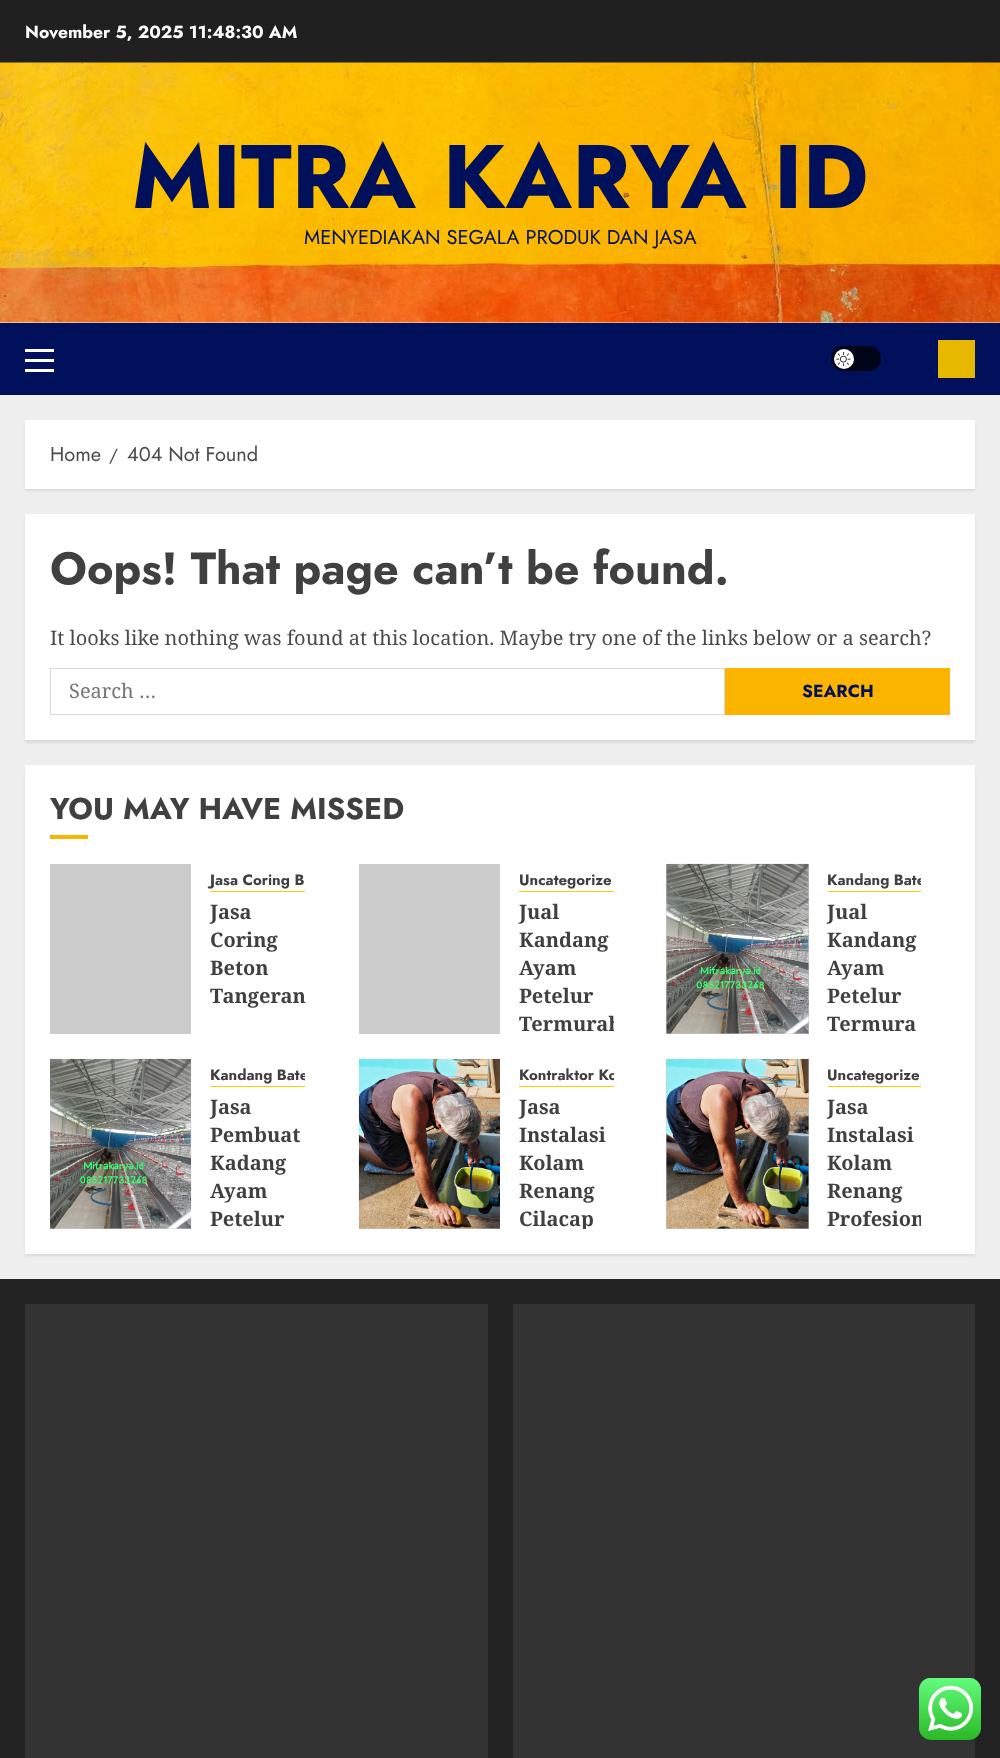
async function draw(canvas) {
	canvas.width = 1000;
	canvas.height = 1758;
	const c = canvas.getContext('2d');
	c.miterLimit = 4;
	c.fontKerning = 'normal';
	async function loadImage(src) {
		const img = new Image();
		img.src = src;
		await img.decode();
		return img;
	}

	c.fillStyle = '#eee';
	c.fillRect(0, 0, 1000, 1758);
	c.fillStyle = '#202020';
	c.fillRect(0, 0, 1000, 63);
	c.font = 'bold 17.5px Jost';
	c.fillStyle = '#fff';
	c.fillText('November 5, 2025 11:48:30 AM', 25, 38);
	c.fillRect(0, 322, 1000, 1);
	c.drawImage(await loadImage('img1.png'), 0, 62, 1000, 261);
	c.font = 'bold 90px Jost';
	c.fillStyle = '#00105b';
	c.fillText('MITRA KARYA ID', 132, 208);
	c.font = '20px Jost';
	c.fillText('MENYEDIAKAN SEGALA PRODUK DAN JASA', 304, 244);
	for (const [x, y, w, h, color] of [
		[0, 323, 1000, 72, '#00105b'],
		[25, 359, 29, 3, '#fff'],
		[25, 349, 29, 3, '#fff'],
		[25, 369, 29, 3, '#fff'],
	]) {
		c.fillStyle = color;
		c.fillRect(x, y, w, h);
	}
	c.fillStyle = '#000417';
	c.beginPath();
	c.roundRect(831, 346, 50, 25, 12.5);
	c.fill();
	c.fillStyle = '#fff';
	c.beginPath();
	c.arc(844, 359, 10, 0, 2 * Math.PI);
	c.fill();
	c.drawImage(await loadImage('img2.png'), 836, 352, 15, 14);
	c.fillStyle = '#e6b800';
	c.fillRect(938, 340, 37, 38);
	c.fillStyle = '#00000014';
	c.filter = 'blur(1px)';
	c.beginPath();
	c.rect(25, 423, 950, 68);
	c.fill();
	c.filter = 'none';
	c.fillStyle = '#fff';
	c.fillRect(25, 420, 950, 69);
	c.fillStyle = '#4a4a4a';
	c.fillText('Home', 50, 461);
	c.font = '17.5px Jost';
	c.fillText('/', 109, 461);
	c.font = '20px Jost';
	c.fillText('404 Not Found', 127, 461);
	c.fillStyle = '#00000014';
	c.filter = 'blur(1px)';
	c.beginPath();
	c.rect(25, 516, 950, 227);
	c.fill();
	c.filter = 'none';
	c.fillStyle = '#fff';
	c.fillRect(25, 514, 950, 226);
	c.font = 'bold 45px Jost';
	c.fillStyle = '#404040';
	c.fillText('Oops! That page can’t be found.', 50, 584);
	c.font = '20px Noto Serif';
	c.fillStyle = '#4a4a4a';
	c.fillText('It looks like nothing was found at this location. Maybe try one of the links below or a search?', 50, 645);
	c.strokeStyle = '#d9d9d9';
	c.strokeRect(50.5, 668.5, 674, 46);
	c.fillStyle = '#757575';
	c.fillText('Search …', 69, 698);
	c.fillStyle = '#fbb400';
	c.fillRect(725, 668, 225, 47);
	c.font = 'bold 17.5px Jost';
	c.fillStyle = '#00105b';
	c.fillText('SEARCH', 802, 697);
	c.fillStyle = '#00000014';
	c.filter = 'blur(1px)';
	c.beginPath();
	c.rect(25, 768, 950, 488);
	c.fill();
	c.filter = 'none';
	c.fillStyle = '#fff';
	c.fillRect(25, 765, 950, 489);
	c.font = 'bold 30px Jost';
	c.fillStyle = '#404040';
	c.fillText('YOU MAY HAVE MISSED', 50, 819);
	for (const [x, y, w, h, color] of [
		[50, 835, 38, 4, '#fbb400'],
		[50, 864, 141, 170, '#ccc'],
		[210, 891, 95, 1, '#fc0'],
	]) {
		c.fillStyle = color;
		c.fillRect(x, y, w, h);
	}
	c.font = 'bold 15px Jost';
	c.fillStyle = '#404040';
	c.fillText('Jasa Coring B', 210, 885);
	c.font = 'bold 20px Noto Serif';
	for (const [text, x, y] of [
		['Jasa', 210, 919],
		['Coring', 210, 947],
		['Beton', 210, 975],
		['Tangeran', 210, 1003],
	]) {
		c.fillText(text, x, y);
	}
	c.fillStyle = '#ccc';
	c.fillRect(359, 864, 141, 170);
	c.fillStyle = '#fc0';
	c.fillRect(519, 891, 95, 1);
	c.font = 'bold 15px Jost';
	c.fillStyle = '#404040';
	c.fillText('Uncategorize', 519, 885);
	c.font = 'bold 20px Noto Serif';
	for (const [text, x, y] of [
		['Jual', 519, 919],
		['Kandang', 519, 947],
		['Ayam', 519, 975],
		['Petelur', 519, 1003],
	]) {
		c.fillText(text, x, y);
	}
	c.save();
	c.beginPath();
	c.rect(500, 864, 114, 170);
	c.clip();
	c.fillText('Termurah', 519, 1031);
	c.restore();
	c.fillStyle = '#ccc';
	c.fillRect(666, 864, 143, 170);
	c.drawImage(await loadImage('img3.png'), 666, 863, 143, 171);
	c.fillStyle = '#fc0';
	c.fillRect(828, 891, 93, 1);
	c.save();
	c.beginPath();
	c.rect(809, 864, 112, 170);
	c.clip();
	c.font = 'bold 15px Jost';
	c.fillStyle = '#404040';
	c.fillText('Kandang Bate', 827, 885);
	c.restore();
	c.fillStyle = '#404040';
	for (const [text, x, y] of [
		['Jual', 827, 919],
		['Kandang', 827, 947],
		['Ayam', 827, 975],
		['Petelur', 827, 1003],
		['Termura', 827, 1031],
	]) {
		c.fillText(text, x, y);
	}
	c.fillStyle = '#ccc';
	c.fillRect(50, 1228, 141, 1);
	c.drawImage(await loadImage('img4.png'), 50, 1058, 142, 171);
	c.fillStyle = '#fc0';
	c.fillRect(210, 1086, 95, 1);
	c.save();
	c.beginPath();
	c.rect(191, 1059, 114, 170);
	c.clip();
	c.font = 'bold 15px Jost';
	c.fillStyle = '#404040';
	c.fillText('Kandang Bate', 210, 1080);
	c.restore();
	c.fillStyle = '#404040';
	for (const [text, x, y] of [
		['Jasa', 210, 1114],
		['Pembuat', 210, 1142],
		['Kadang', 210, 1170],
		['Ayam', 210, 1198],
		['Petelur', 210, 1226],
	]) {
		c.fillText(text, x, y);
	}
	c.fillStyle = '#ccc';
	c.fillRect(359, 1228, 141, 1);
	c.drawImage(await loadImage('img5.png'), 358, 1058, 142, 171);
	c.fillStyle = '#fc0';
	c.fillRect(519, 1086, 95, 1);
	c.save();
	c.beginPath();
	c.rect(500, 1059, 114, 170);
	c.clip();
	c.font = 'bold 15px Jost';
	c.fillStyle = '#404040';
	c.fillText('Kontraktor Ko', 519, 1080);
	c.restore();
	c.fillStyle = '#404040';
	for (const [text, x, y] of [
		['Jasa', 519, 1114],
		['Instalasi', 519, 1142],
		['Kolam', 519, 1170],
		['Renang', 519, 1198],
	]) {
		c.fillText(text, x, y);
	}
	c.save();
	c.beginPath();
	c.rect(500, 1059, 114, 170);
	c.clip();
	c.fillText('Cilacap', 519, 1226);
	c.restore();
	c.fillStyle = '#ccc';
	c.fillRect(666, 1059, 143, 170);
	c.drawImage(await loadImage('img6.png'), 666, 1058, 143, 171);
	c.fillStyle = '#fc0';
	c.fillRect(828, 1086, 93, 1);
	c.font = 'bold 15px Jost';
	c.fillStyle = '#404040';
	c.fillText('Uncategorize', 827, 1080);
	c.font = 'bold 20px Noto Serif';
	for (const [text, x, y] of [
		['Jasa', 827, 1114],
		['Instalasi', 827, 1142],
		['Kolam', 827, 1170],
		['Renang', 827, 1198],
	]) {
		c.fillText(text, x, y);
	}
	c.save();
	c.beginPath();
	c.rect(809, 1059, 112, 170);
	c.clip();
	c.fillText('Profesion', 827, 1226);
	c.restore();
	for (const [x, y, w, h, color] of [
		[0, 1279, 1000, 479, '#222'],
		[25, 1304, 463, 454, '#333'],
		[513, 1304, 462, 454, '#333'],
	]) {
		c.fillStyle = color;
		c.fillRect(x, y, w, h);
	}
	c.drawImage(await loadImage('img7.png'), 919, 1678, 62, 62);
}

draw(document.querySelector('canvas'));
